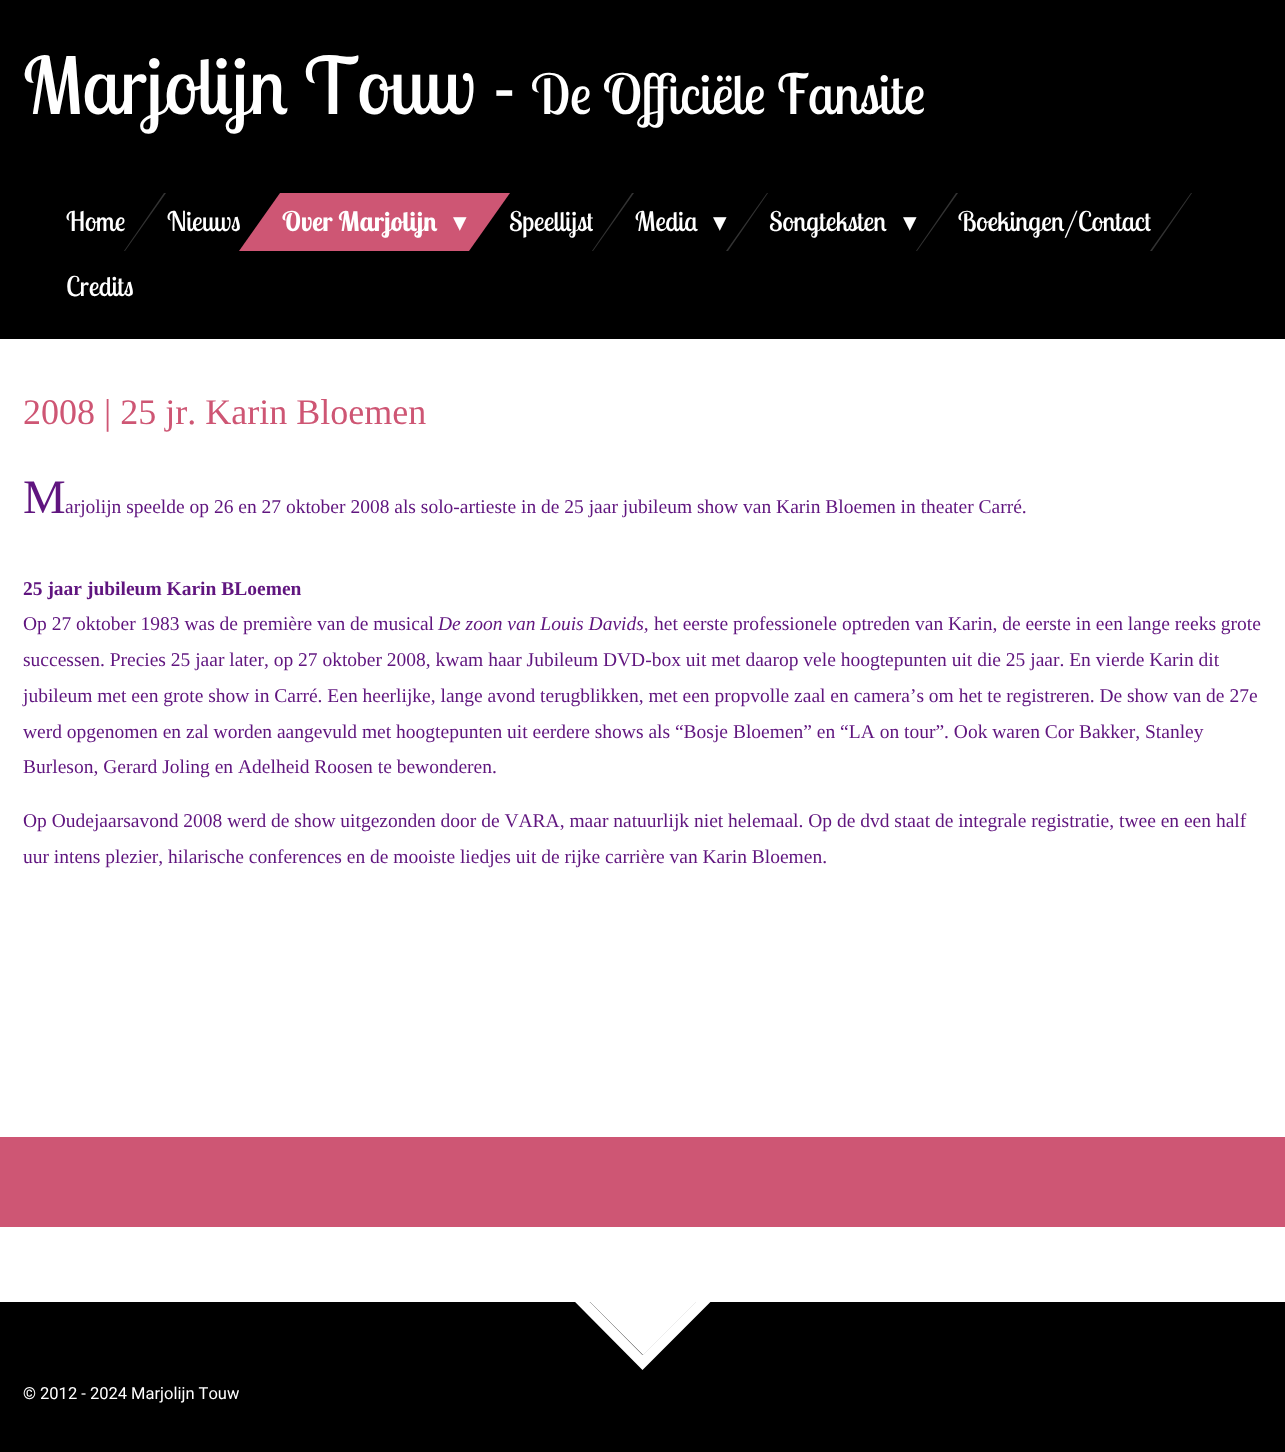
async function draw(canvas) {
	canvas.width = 1285;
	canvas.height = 1452;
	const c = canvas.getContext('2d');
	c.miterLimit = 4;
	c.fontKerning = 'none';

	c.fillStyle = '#fff';
	c.fillRect(0, 0, 1285, 1452);
	c.fillStyle = '#000';
	c.fillRect(0, 0, 1285, 339);
	c.font = '78.75px Lobster Two';
	c.fillStyle = '#fff';
	c.fillText('Marjolijn Touw -', 23, 114);
	c.font = '55px Lobster Two';
	c.fillText('De Officiële Fansite', 531, 114);
	c.fillStyle = '#333';
	c.beginPath();
	c.moveTo(164, 193);
	c.lineTo(166, 193);
	c.lineTo(125, 251);
	c.lineTo(124, 251);
	c.closePath();
	c.fill();
	c.font = '27px Lobster Two';
	c.fillStyle = '#fff';
	c.fillText('Home', 66, 231);
	c.fillText('Nieuws', 167, 231);
	c.fillStyle = '#333';
	c.beginPath();
	c.moveTo(632, 193);
	c.lineTo(634, 193);
	c.lineTo(593, 251);
	c.lineTo(592, 251);
	c.closePath();
	c.fill();
	c.fillStyle = '#fff';
	c.fillText('Speellijst', 509, 231);
	c.fillStyle = '#ce5674';
	c.beginPath();
	c.moveTo(280, 193);
	c.lineTo(510, 193);
	c.lineTo(469, 251);
	c.lineTo(239, 251);
	c.closePath();
	c.fill();
	c.font = 'bold 27px Lobster Two';
	c.fillStyle = '#fff';
	c.fillText('Over Marjolijn', 282, 231);
	c.font = '27px DejaVu Sans';
	c.fillText('▾', 453, 231);
	c.font = '27px Lobster Two';
	c.fillText('Media', 635, 231);
	c.fillStyle = '#333';
	c.beginPath();
	c.moveTo(767, 193);
	c.lineTo(768, 193);
	c.lineTo(728, 251);
	c.lineTo(726, 251);
	c.closePath();
	c.fill();
	c.font = '27px DejaVu Sans';
	c.fillStyle = '#fff';
	c.fillText('▾', 713, 231);
	c.font = '27px Lobster Two';
	c.fillText('Songteksten', 769, 231);
	c.fillStyle = '#333';
	c.beginPath();
	c.moveTo(956, 193);
	c.lineTo(958, 193);
	c.lineTo(917, 251);
	c.lineTo(916, 251);
	c.closePath();
	c.fill();
	c.font = '27px DejaVu Sans';
	c.fillStyle = '#fff';
	c.fillText('▾', 903, 231);
	c.fillStyle = '#333';
	c.beginPath();
	c.moveTo(1191, 193);
	c.lineTo(1192, 193);
	c.lineTo(1152, 251);
	c.lineTo(1150, 251);
	c.closePath();
	c.fill();
	c.font = '27px Lobster Two';
	c.fillStyle = '#fff';
	c.fillText('Boekingen/Contact', 958, 231);
	c.fillText('Credits', 66, 296);
	c.font = '36px Liberation Serif';
	c.fillStyle = '#ce5674';
	c.fillText('2008 | 25 jr. Karin Bloemen', 23, 424);
	c.font = '48px Liberation Serif';
	c.fillStyle = '#60157f';
	c.fillText('M', 23, 513);
	c.font = '19.5px Liberation Serif';
	c.fillText('arjolijn speelde op 26 en 27 oktober 2008 als solo-artieste in de 25 jaar jubileum show van Karin Bloemen in theater Carré.', 65, 513);
	c.font = 'bold 19.5px Liberation Serif';
	c.fillText('25 jaar jubileum Karin BLoemen', 23, 595);
	c.font = '19.5px Liberation Serif';
	c.fillText('Op 27 oktober 1983 was de première van de musical', 23, 630);
	c.font = 'italic 19.5px Liberation Serif';
	c.fillText('De zoon van Louis Davids,', 438, 630);
	c.font = '19.5px Liberation Serif';
	for (const [text, x, y] of [
		['het eerste professionele optreden van Karin, de eerste in een lange reeks grote', 654, 630],
		['successen. Precies 25 jaar later, op 27 oktober 2008, kwam haar Jubileum DVD-box uit met daarop vele hoogtepunten uit die 25 jaar. En vierde Karin dit', 23, 666],
		['jubileum met een grote show in Carré. Een heerlijke, lange avond terugblikken, met een propvolle zaal en camera’s om het te registreren. De show van de 27e', 23, 702],
		['werd opgenomen en zal worden aangevuld met hoogtepunten uit eerdere shows als “Bosje Bloemen” en “LA on tour”. Ook waren Cor Bakker, Stanley', 23, 738],
		['Burleson, Gerard Joling en Adelheid Roosen te bewonderen.', 23, 773],
		['Op Oudejaarsavond 2008 werd de show uitgezonden door de VARA, maar natuurlijk niet helemaal. Op de dvd staat de integrale registratie, twee en een half', 23, 827],
		['uur intens plezier, hilarische conferences en de mooiste liedjes uit de rijke carrière van Karin Bloemen.', 23, 863],
	]) {
		c.fillText(text, x, y);
	}
	c.fillStyle = '#ce5674';
	c.fillRect(0, 1137, 1285, 90);
	c.fillStyle = '#000';
	c.fillRect(0, 1302, 1285, 150);
	c.fillStyle = '#fff';
	c.beginPath();
	c.moveTo(643, 1249);
	c.lineTo(696, 1302);
	c.lineTo(643, 1355);
	c.lineTo(590, 1302);
	c.closePath();
	c.fill();
	c.beginPath();
	c.moveTo(643, 1241.5);
	c.lineTo(703, 1302);
	c.lineTo(642.5, 1362.5);
	c.lineTo(582.5, 1302);
	c.closePath();
	c.strokeStyle = '#fff';
	c.lineWidth = 10.5;
	c.stroke();
	c.font = '16.5px Roboto';
	c.fillText('© 2012 - 2024 Marjolijn Touw', 23, 1399);
}

draw(document.querySelector('canvas'));
